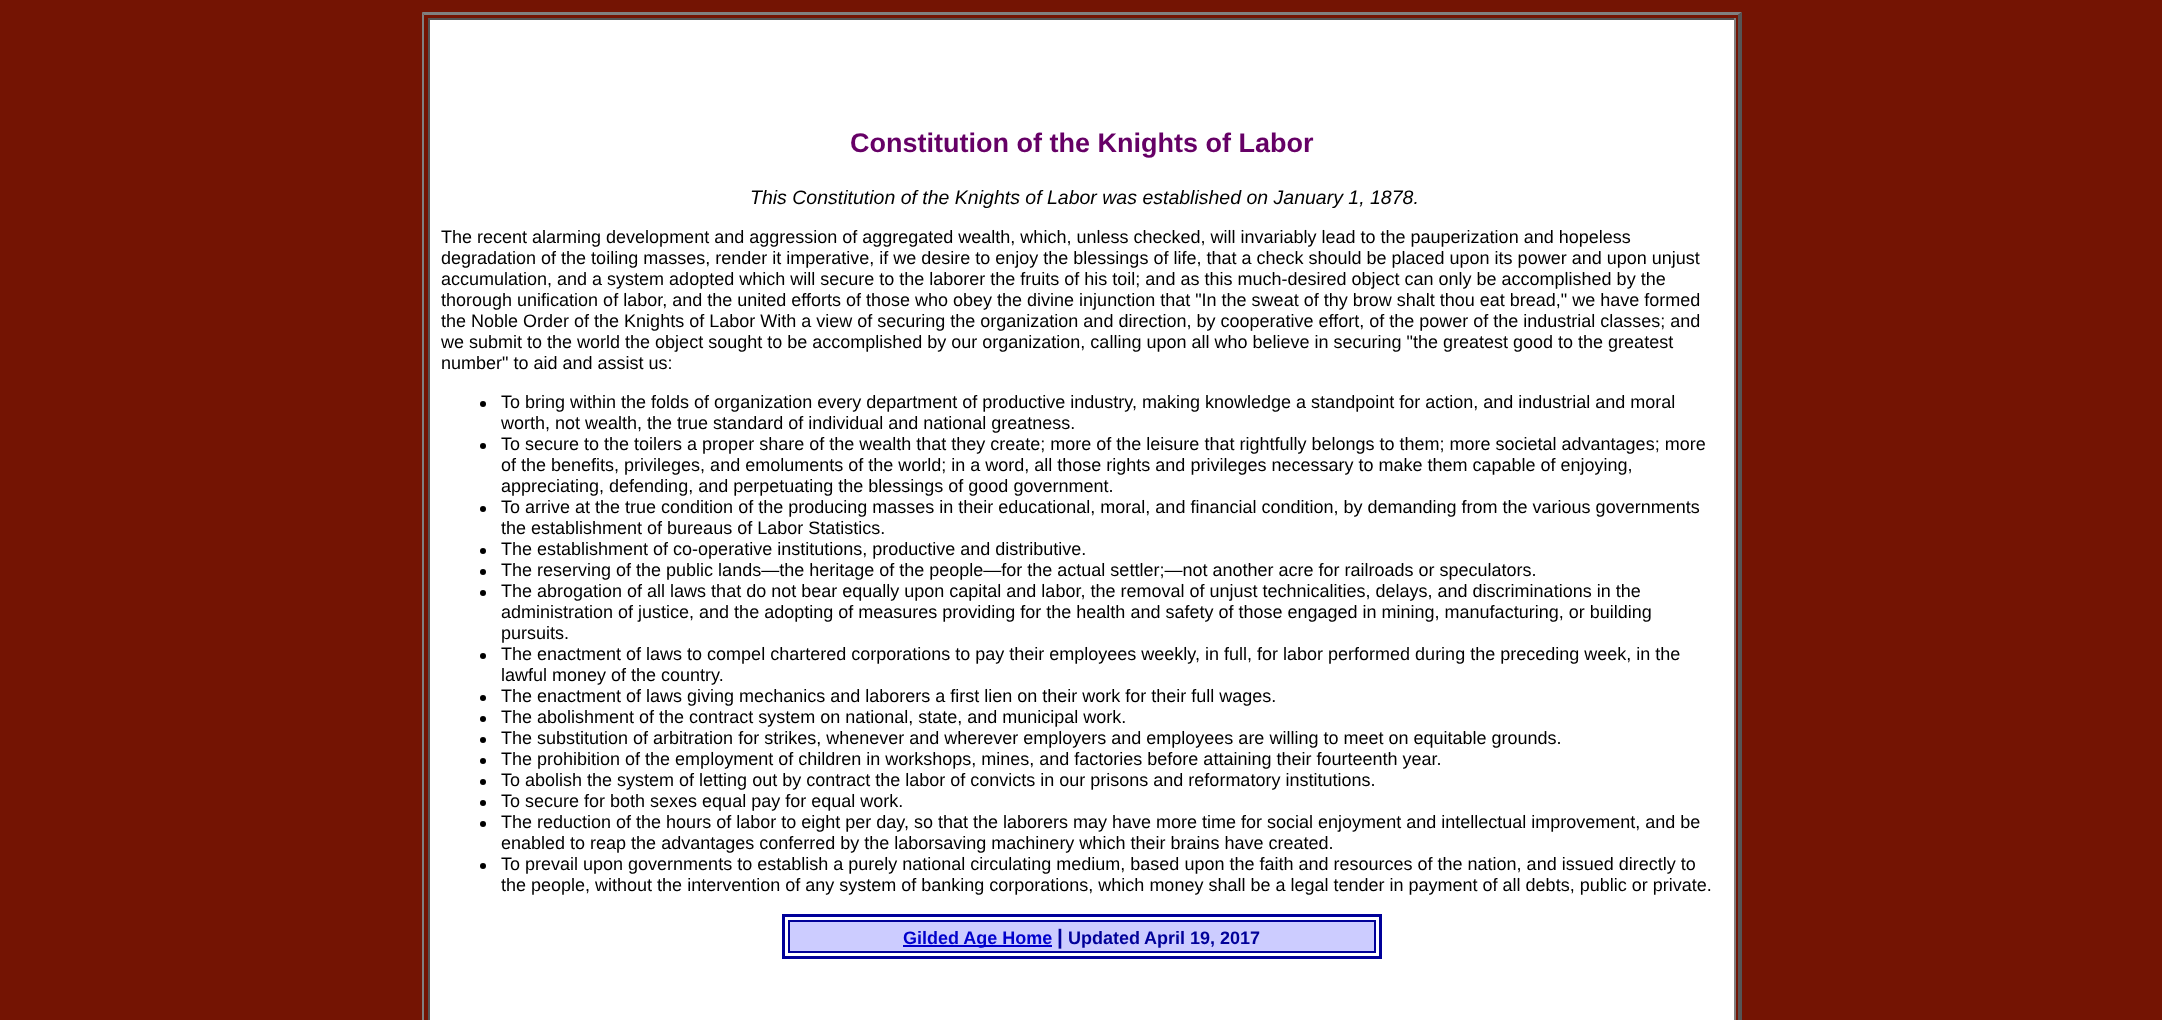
async function draw(canvas) {
	canvas.width = 2162;
	canvas.height = 1020;
	const c = canvas.getContext('2d');
	c.miterLimit = 4;
	c.fontKerning = 'normal';

	c.fillStyle = '#741403';
	c.fillRect(0, 0, 2162, 1020);
	c.fillStyle = '#808080';
	c.beginPath();
	c.moveTo(422, 12);
	c.lineTo(1742, 12);
	c.lineTo(1738, 15);
	c.lineTo(424, 15);
	c.closePath();
	c.fill();
	c.fillStyle = '#555';
	c.beginPath();
	c.moveTo(1742, 12);
	c.lineTo(1742, 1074);
	c.lineTo(1738, 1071);
	c.lineTo(1738, 15);
	c.closePath();
	c.fill();
	c.fillStyle = '#808080';
	c.beginPath();
	c.moveTo(422, 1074);
	c.lineTo(422, 12);
	c.lineTo(424, 15);
	c.lineTo(424, 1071);
	c.closePath();
	c.fill();
	for (const [x, y, w, h, color] of [
		[430, 20, 1304, 1000, '#fff'],
		[428, 18, 1308, 2, '#555'],
		[1734, 18, 2, 1002, '#808080'],
		[428, 18, 2, 1002, '#555'],
	]) {
		c.fillStyle = color;
		c.fillRect(x, y, w, h);
	}
	c.font = 'bold 27px Liberation Sans';
	c.fillStyle = '#606';
	c.fillText('Constitution of the Knights of Labor', 850, 152);
	c.font = 'italic 19.5px Liberation Sans';
	c.fillStyle = '#000';
	c.fillText('This Constitution of the Knights of Labor was established on January 1, 1878.', 750, 204);
	c.font = '18px Liberation Sans';
	for (const [text, x, y] of [
		['The recent alarming development and aggression of aggregated wealth, which, unless checked, will invariably lead to the pauperization and hopeless', 441, 243],
		['degradation of the toiling masses, render it imperative, if we desire to enjoy the blessings of life, that a check should be placed upon its power and upon unjust', 441, 264],
		['accumulation, and a system adopted which will secure to the laborer the fruits of his toil; and as this much-desired object can only be accomplished by the', 441, 285],
		['thorough unification of labor, and the united efforts of those who obey the divine injunction that "In the sweat of thy brow shalt thou eat bread," we have formed', 441, 306],
		['the Noble Order of the Knights of Labor With a view of securing the organization and direction, by cooperative effort, of the power of the industrial classes; and', 441, 327],
		['we submit to the world the object sought to be accomplished by our organization, calling upon all who believe in securing "the greatest good to the greatest', 441, 348],
		['number" to aid and assist us:', 441, 369],
	]) {
		c.fillText(text, x, y);
	}
	c.beginPath();
	c.arc(483, 404, 3, 0, 2 * Math.PI);
	c.fill();
	c.fillText('To bring within the folds of organization every department of productive industry, making knowledge a standpoint for action, and industrial and moral', 501, 408);
	c.fillText('worth, not wealth, the true standard of individual and national greatness.', 501, 429);
	c.beginPath();
	c.arc(483, 446, 3, 0, 2 * Math.PI);
	c.fill();
	for (const [text, x, y] of [
		['To secure to the toilers a proper share of the wealth that they create; more of the leisure that rightfully belongs to them; more societal advantages; more', 501, 450],
		['of the benefits, privileges, and emoluments of the world; in a word, all those rights and privileges necessary to make them capable of enjoying,', 501, 471],
		['appreciating, defending, and perpetuating the blessings of good government.', 501, 492],
	]) {
		c.fillText(text, x, y);
	}
	c.beginPath();
	c.arc(483, 509, 3, 0, 2 * Math.PI);
	c.fill();
	c.fillText('To arrive at the true condition of the producing masses in their educational, moral, and financial condition, by demanding from the various governments', 501, 513);
	c.fillText('the establishment of bureaus of Labor Statistics.', 501, 534);
	c.beginPath();
	c.arc(483, 551, 3, 0, 2 * Math.PI);
	c.fill();
	c.fillText('The establishment of co-operative institutions, productive and distributive.', 501, 555);
	c.beginPath();
	c.arc(483, 572, 3, 0, 2 * Math.PI);
	c.fill();
	c.fillText('The reserving of the public lands—the heritage of the people—for the actual settler;—not another acre for railroads or speculators.', 501, 576);
	c.beginPath();
	c.arc(483, 593, 3, 0, 2 * Math.PI);
	c.fill();
	for (const [text, x, y] of [
		['The abrogation of all laws that do not bear equally upon capital and labor, the removal of unjust technicalities, delays, and discriminations in the', 501, 597],
		['administration of justice, and the adopting of measures providing for the health and safety of those engaged in mining, manufacturing, or building', 501, 618],
		['pursuits.', 501, 639],
	]) {
		c.fillText(text, x, y);
	}
	c.beginPath();
	c.arc(483, 656, 3, 0, 2 * Math.PI);
	c.fill();
	c.fillText('The enactment of laws to compel chartered corporations to pay their employees weekly, in full, for labor performed during the preceding week, in the', 501, 660);
	c.fillText('lawful money of the country.', 501, 681);
	c.beginPath();
	c.arc(483, 698, 3, 0, 2 * Math.PI);
	c.fill();
	c.fillText('The enactment of laws giving mechanics and laborers a first lien on their work for their full wages.', 501, 702);
	c.beginPath();
	c.arc(483, 719, 3, 0, 2 * Math.PI);
	c.fill();
	c.fillText('The abolishment of the contract system on national, state, and municipal work.', 501, 723);
	c.beginPath();
	c.arc(483, 740, 3, 0, 2 * Math.PI);
	c.fill();
	c.fillText('The substitution of arbitration for strikes, whenever and wherever employers and employees are willing to meet on equitable grounds.', 501, 744);
	c.beginPath();
	c.arc(483, 761, 3, 0, 2 * Math.PI);
	c.fill();
	c.fillText('The prohibition of the employment of children in workshops, mines, and factories before attaining their fourteenth year.', 501, 765);
	c.beginPath();
	c.arc(483, 782, 3, 0, 2 * Math.PI);
	c.fill();
	c.fillText('To abolish the system of letting out by contract the labor of convicts in our prisons and reformatory institutions.', 501, 786);
	c.beginPath();
	c.arc(483, 803, 3, 0, 2 * Math.PI);
	c.fill();
	c.fillText('To secure for both sexes equal pay for equal work.', 501, 807);
	c.beginPath();
	c.arc(483, 824, 3, 0, 2 * Math.PI);
	c.fill();
	c.fillText('The reduction of the hours of labor to eight per day, so that the laborers may have more time for social enjoyment and intellectual improvement, and be', 501, 828);
	c.fillText('enabled to reap the advantages conferred by the laborsaving machinery which their brains have created.', 501, 849);
	c.beginPath();
	c.arc(483, 866, 3, 0, 2 * Math.PI);
	c.fill();
	c.fillText('To prevail upon governments to establish a purely national circulating medium, based upon the faith and resources of the nation, and issued directly to', 501, 870);
	c.fillText('the people, without the intervention of any system of banking corporations, which money shall be a legal tender in payment of all debts, public or private.', 501, 891);
	c.strokeStyle = '#009';
	c.lineWidth = 3;
	c.strokeRect(783.5, 915.5, 597, 42);
	c.fillStyle = '#ccf';
	c.beginPath();
	c.rect(789, 921, 586, 31);
	c.fill();
	c.lineWidth = 2;
	c.stroke();
	c.fillStyle = '#00c';
	c.fillRect(903, 945, 149, 2);
	c.font = 'bold 18px Liberation Sans';
	c.fillText('Gilded Age Home', 903, 944);
	c.font = 'bold 21px Liberation Sans';
	c.fillStyle = '#009';
	c.fillText('|', 1057, 944);
	c.font = 'bold 18px Liberation Sans';
	c.fillText('Updated', 1068, 944);
	c.fillText('April 19, 2017', 1144, 944);
}

draw(document.querySelector('canvas'));
